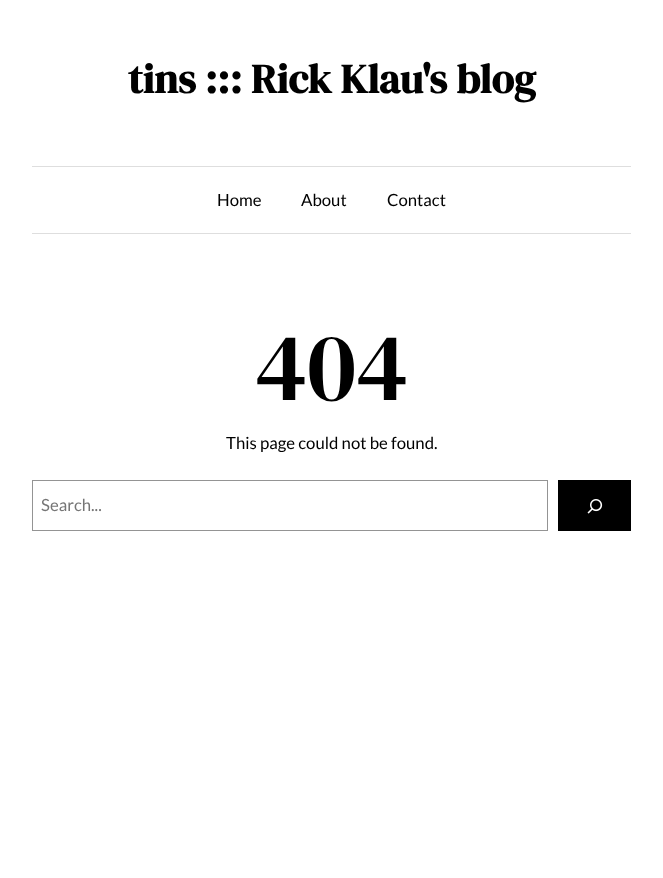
async function draw(canvas) {
	canvas.width = 663;
	canvas.height = 878;
	const c = canvas.getContext('2d');
	c.miterLimit = 4;
	c.fontKerning = 'normal';
	async function loadImage(src) {
		const img = new Image();
		img.src = src;
		await img.decode();
		return img;
	}

	c.fillStyle = '#fff';
	c.fillRect(0, 0, 663, 878);
	c.font = 'bold 41.1px DM Serif Display';
	c.fillStyle = '#000';
	c.fillText('tins ::: Rick Klau\'s blog', 128, 93);
	c.fillStyle = '#dedede';
	c.fillRect(32, 166, 599, 1);
	c.fillRect(32, 233, 599, 1);
	c.font = '16.75px Lato';
	c.fillStyle = '#000';
	for (const [text, x, y] of [
		['Home', 217, 206],
		['About', 301, 206],
		['Contact', 387, 206],
	]) {
		c.fillText(text, x, y);
	}
	c.font = '97px DM Serif Display';
	c.fillText('404', 255, 400);
	c.font = '16.75px Lato';
	c.fillText('This page could not be found.', 226, 449);
	c.strokeStyle = '#949494';
	c.strokeRect(32.5, 480.5, 515, 50);
	c.fillStyle = '#757575';
	c.fillText('Search...', 41, 511);
	c.fillStyle = '#000';
	c.fillRect(558, 480, 73, 51);
	c.drawImage(await loadImage('img1.png'), 587, 499, 16, 15);
}

draw(document.querySelector('canvas'));
